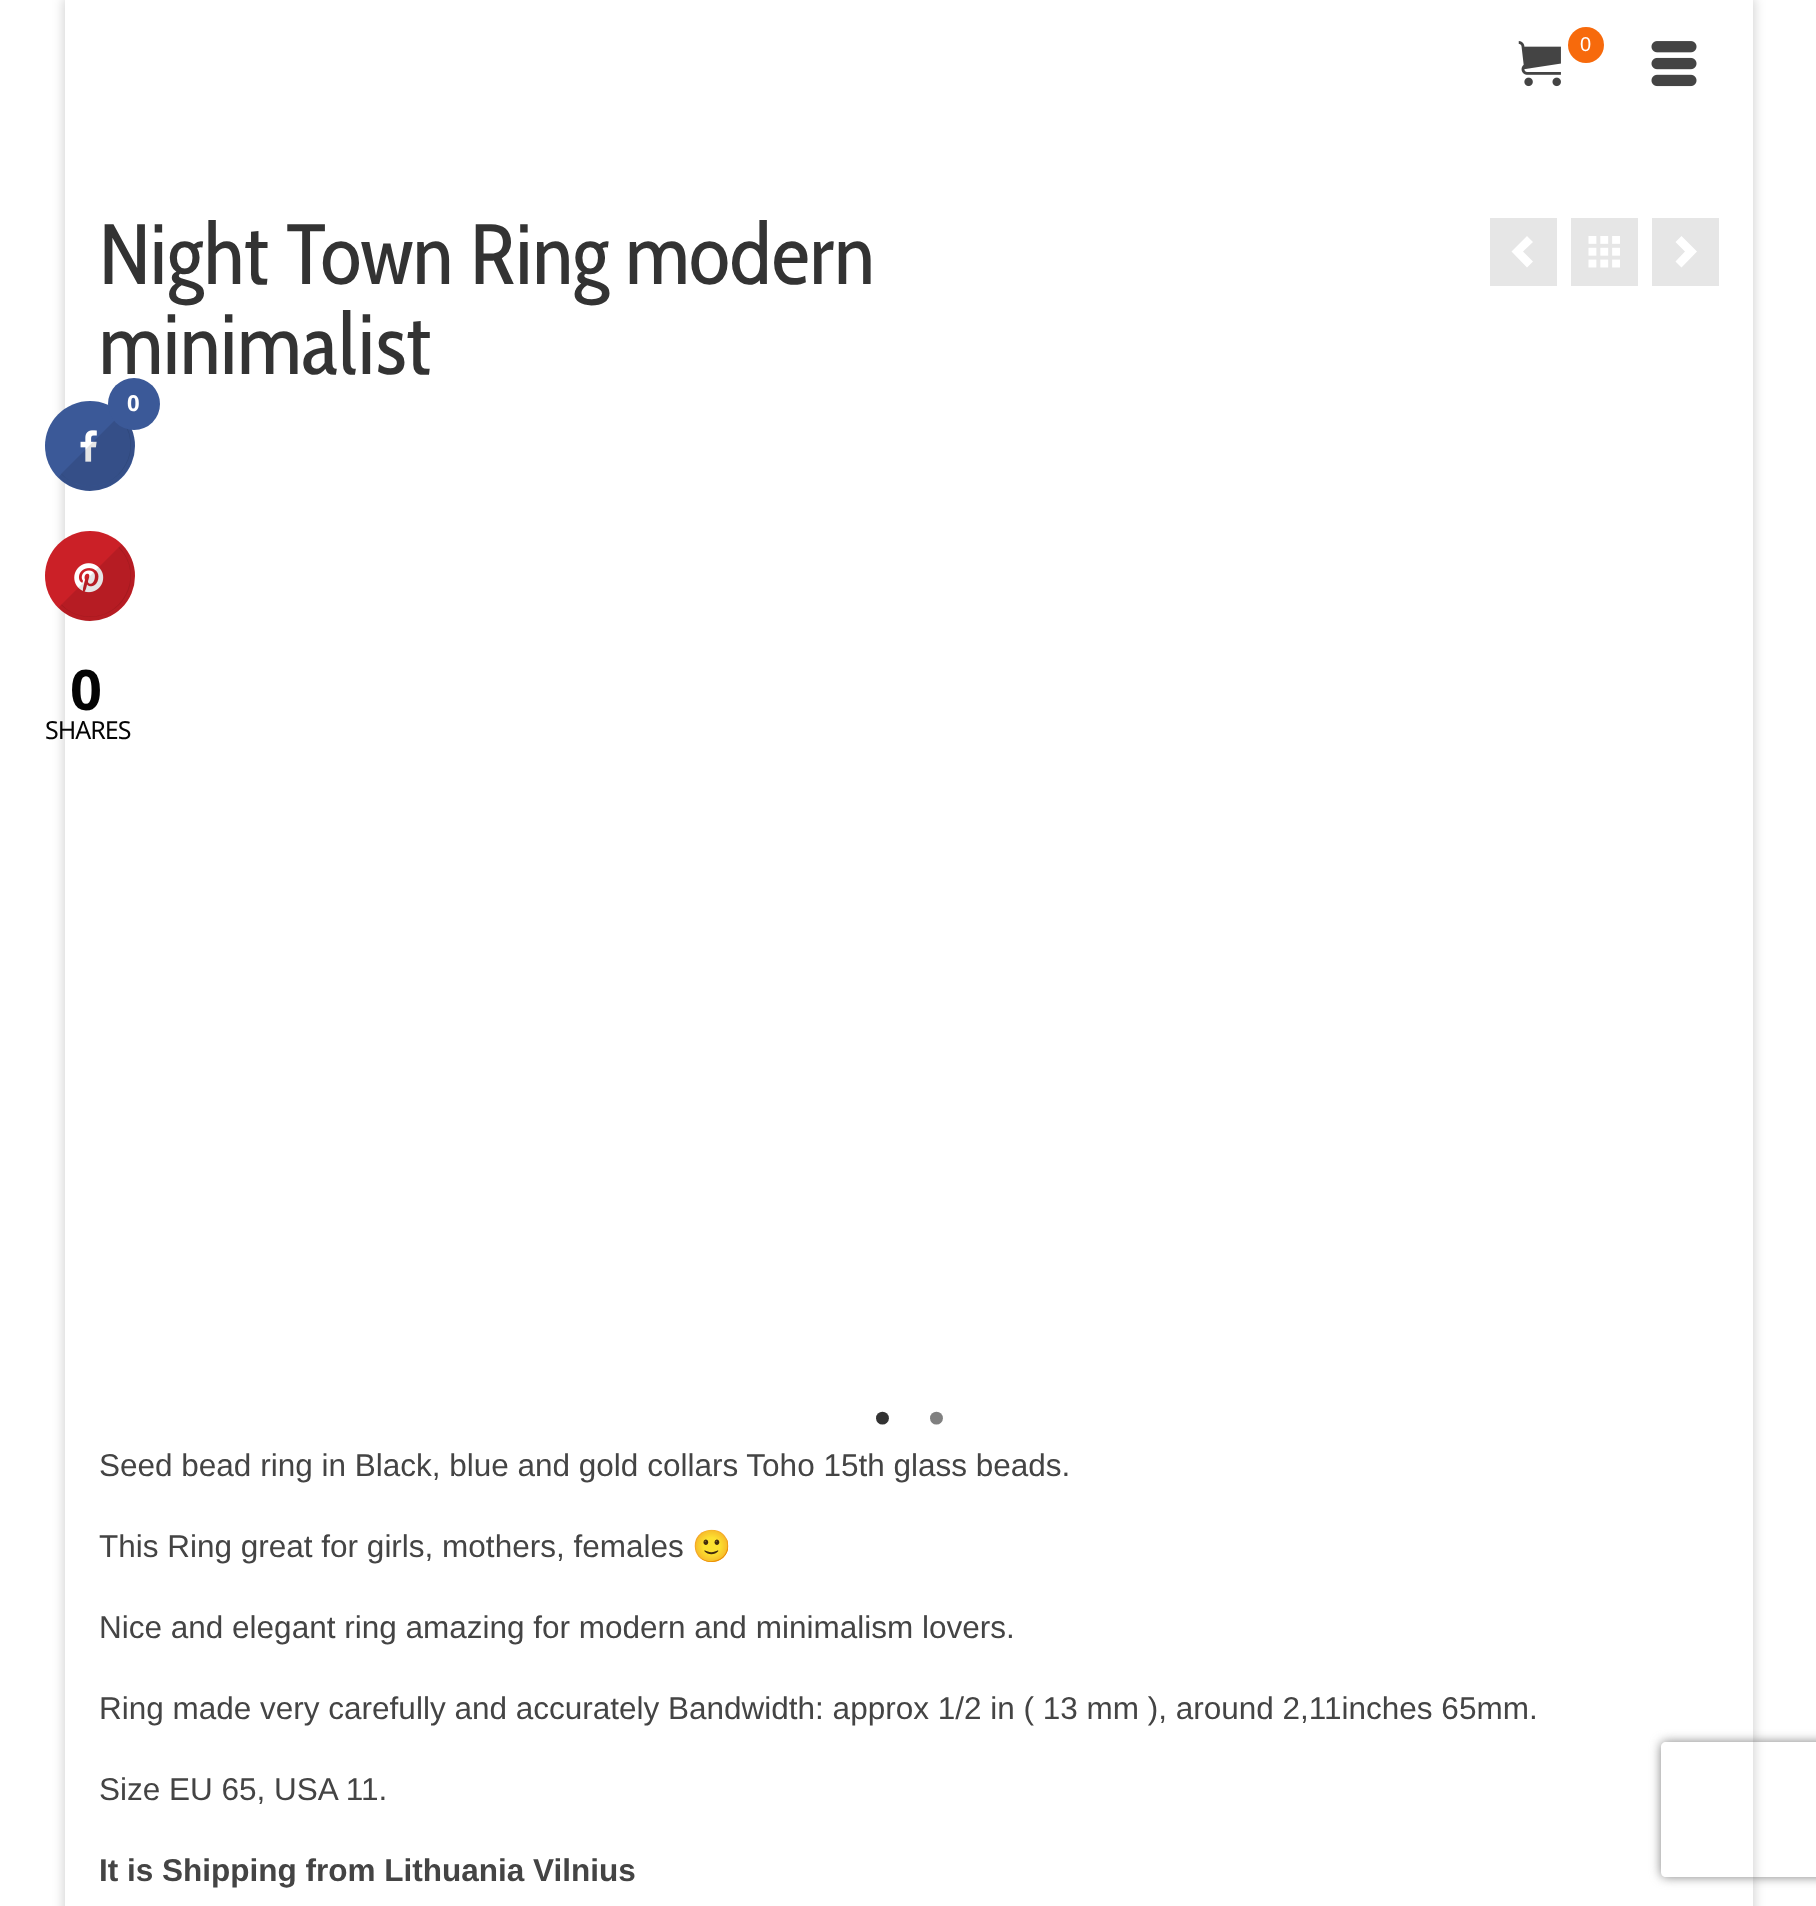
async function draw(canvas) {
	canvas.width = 1816;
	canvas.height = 1906;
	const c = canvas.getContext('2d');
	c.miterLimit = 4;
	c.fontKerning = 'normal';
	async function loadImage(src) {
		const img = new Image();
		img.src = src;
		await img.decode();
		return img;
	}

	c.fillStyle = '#fff';
	c.fillRect(0, 0, 1816, 1906);
	c.save();
	c.beginPath();
	c.moveTo(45, 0);
	c.lineTo(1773, 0);
	c.lineTo(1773, 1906);
	c.lineTo(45, 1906);
	c.closePath();
	c.moveTo(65, 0);
	c.lineTo(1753, 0);
	c.lineTo(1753, 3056);
	c.lineTo(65, 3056);
	c.closePath();
	c.clip('evenodd');
	c.fillStyle = '#00000029';
	c.filter = 'blur(5.5px)';
	c.beginPath();
	c.rect(63, -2, 1692, 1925);
	c.fill();
	c.filter = 'none';
	c.restore();
	c.fillStyle = '#3b5998';
	c.beginPath();
	c.arc(90, 446, 45, 0, 2 * Math.PI);
	c.fill();
	c.beginPath();
	c.moveTo(120, 415.5);
	c.bezierCurveTo(150, 445, 122.5, 495.5, 81.5, 487.5);
	c.bezierCurveTo(73.5, 486, 65.5, 481.5, 60, 475.5);
	c.strokeStyle = '#0000001a';
	c.lineWidth = 4.5;
	c.stroke();
	c.drawImage(await loadImage('img1.png'), 80, 430, 17, 32);
	c.fillStyle = '#0000001a';
	c.beginPath();
	c.moveTo(119, 416);
	c.bezierCurveTo(135, 432, 135, 458, 119, 474);
	c.bezierCurveTo(103, 490, 77, 490, 61, 474);
	c.closePath();
	c.fill();
	c.fillStyle = '#3b5998';
	c.beginPath();
	c.arc(134, 404, 26, 0, 2 * Math.PI);
	c.fill();
	c.letterSpacing = '1px';
	c.font = 'bold 22px Noto Sans';
	c.fillStyle = '#fff';
	c.fillText('0', 127, 411);
	c.fillStyle = '#cb2027';
	c.beginPath();
	c.arc(90, 576, 45, 0, 2 * Math.PI);
	c.fill();
	c.beginPath();
	c.moveTo(120, 546);
	c.bezierCurveTo(150, 575.5, 122.5, 626, 81.5, 618);
	c.bezierCurveTo(73.5, 616.5, 65.5, 612, 60, 606);
	c.stroke();
	c.drawImage(await loadImage('img2.png'), 74, 563, 30, 30);
	c.fillStyle = '#0000001a';
	c.beginPath();
	c.moveTo(61, 605);
	c.lineTo(119, 547);
	c.bezierCurveTo(135, 563, 135, 589, 119, 605);
	c.bezierCurveTo(103, 621, 77, 621, 61, 605);
	c.closePath();
	c.fill();
	c.font = 'bold 56px Noto Sans';
	c.fillStyle = '#040404';
	c.fillText('0', 70, 710);
	c.letterSpacing = '-1px';
	c.font = '25px Noto Sans';
	c.fillText('SHARES', 45, 739);
	c.drawImage(await loadImage('img3.png'), 1518, 41, 43, 46);
	c.fillStyle = '#f76a0c';
	c.beginPath();
	c.arc(1586, 45, 18, 0, 2 * Math.PI);
	c.fill();
	c.letterSpacing = '0px';
	c.font = '20px Liberation Sans';
	c.fillStyle = '#fff';
	c.fillText('0', 1580, 51);
	c.drawImage(await loadImage('img4.png'), 1651, 41, 46, 46);
	c.font = '85.5px Cabin Condensed';
	c.fillStyle = '#333';
	c.fillText('Night Town Ring modern', 99, 284);
	c.fillText('minimalist', 99, 374);
	for (const [x, y, w, h, color] of [
		[1490, 218, 67, 68, '#e6e6e6'],
		[1571, 218, 67, 68, '#e6e6e6'],
		[1652, 218, 67, 68, '#e6e6e6'],
	]) {
		c.fillStyle = color;
		c.fillRect(x, y, w, h);
	}
	c.fillStyle = '#fff';
	c.beginPath();
	c.moveTo(1527, 267.5);
	c.lineTo(1533, 261.5);
	c.lineTo(1523, 251.5);
	c.lineTo(1533, 242);
	c.lineTo(1527, 236);
	c.lineTo(1511.5, 251.5);
	c.closePath();
	c.fill();
	c.drawImage(await loadImage('img5.png'), 1588, 236, 32, 32);
	c.beginPath();
	c.moveTo(1681.5, 236);
	c.lineTo(1675.5, 242);
	c.lineTo(1685, 251.5);
	c.lineTo(1675.5, 261.5);
	c.lineTo(1681.5, 267.5);
	c.lineTo(1697, 251.5);
	c.closePath();
	c.fill();
	c.font = '54px Liberation Serif';
	c.fillStyle = '#333';
	c.fillText('•', 873, 1436);
	c.fillStyle = '#808080';
	c.fillText('•', 927, 1436);
	c.font = '31.5px Liberation Sans';
	c.fillStyle = '#444';
	c.fillText('Seed bead ring in Black, blue and gold collars Toho 15th glass beads.', 99, 1476);
	c.fillText('This Ring great for girls, mothers, females', 99, 1557);
	c.font = '31.5px Noto Color Emoji';
	c.fillText('🙂', 692, 1557);
	c.font = '31.5px Liberation Sans';
	for (const [text, x, y] of [
		['Nice and elegant ring amazing for modern and minimalism lovers.', 99, 1638],
		['Ring made very carefully and accurately Bandwidth: approx 1/2 in ( 13 mm ), around 2,11inches 65mm.', 99, 1719],
		['Size EU 65, USA 11.', 99, 1800],
	]) {
		c.fillText(text, x, y);
	}
	c.font = 'bold 31.5px Liberation Sans';
	c.fillText('It is Shipping from Lithuania Vilnius', 99, 1881);
	c.save();
	c.beginPath();
	c.moveTo(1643, 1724);
	c.lineTo(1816, 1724);
	c.lineTo(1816, 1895);
	c.lineTo(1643, 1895);
	c.closePath();
	c.moveTo(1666, 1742);
	c.lineTo(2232, 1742);
	c.bezierCurveTo(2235, 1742, 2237, 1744, 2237, 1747);
	c.lineTo(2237, 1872);
	c.bezierCurveTo(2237, 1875, 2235, 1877, 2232, 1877);
	c.lineTo(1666, 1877);
	c.bezierCurveTo(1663, 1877, 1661, 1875, 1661, 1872);
	c.lineTo(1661, 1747);
	c.bezierCurveTo(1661, 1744, 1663, 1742, 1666, 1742);
	c.closePath();
	c.clip('evenodd');
	c.fillStyle = '#808080';
	c.filter = 'blur(5.5px)';
	c.beginPath();
	c.roundRect(1661, 1742, 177, 135, 5);
	c.fill();
	c.filter = 'none';
	c.restore();
}

draw(document.querySelector('canvas'));
